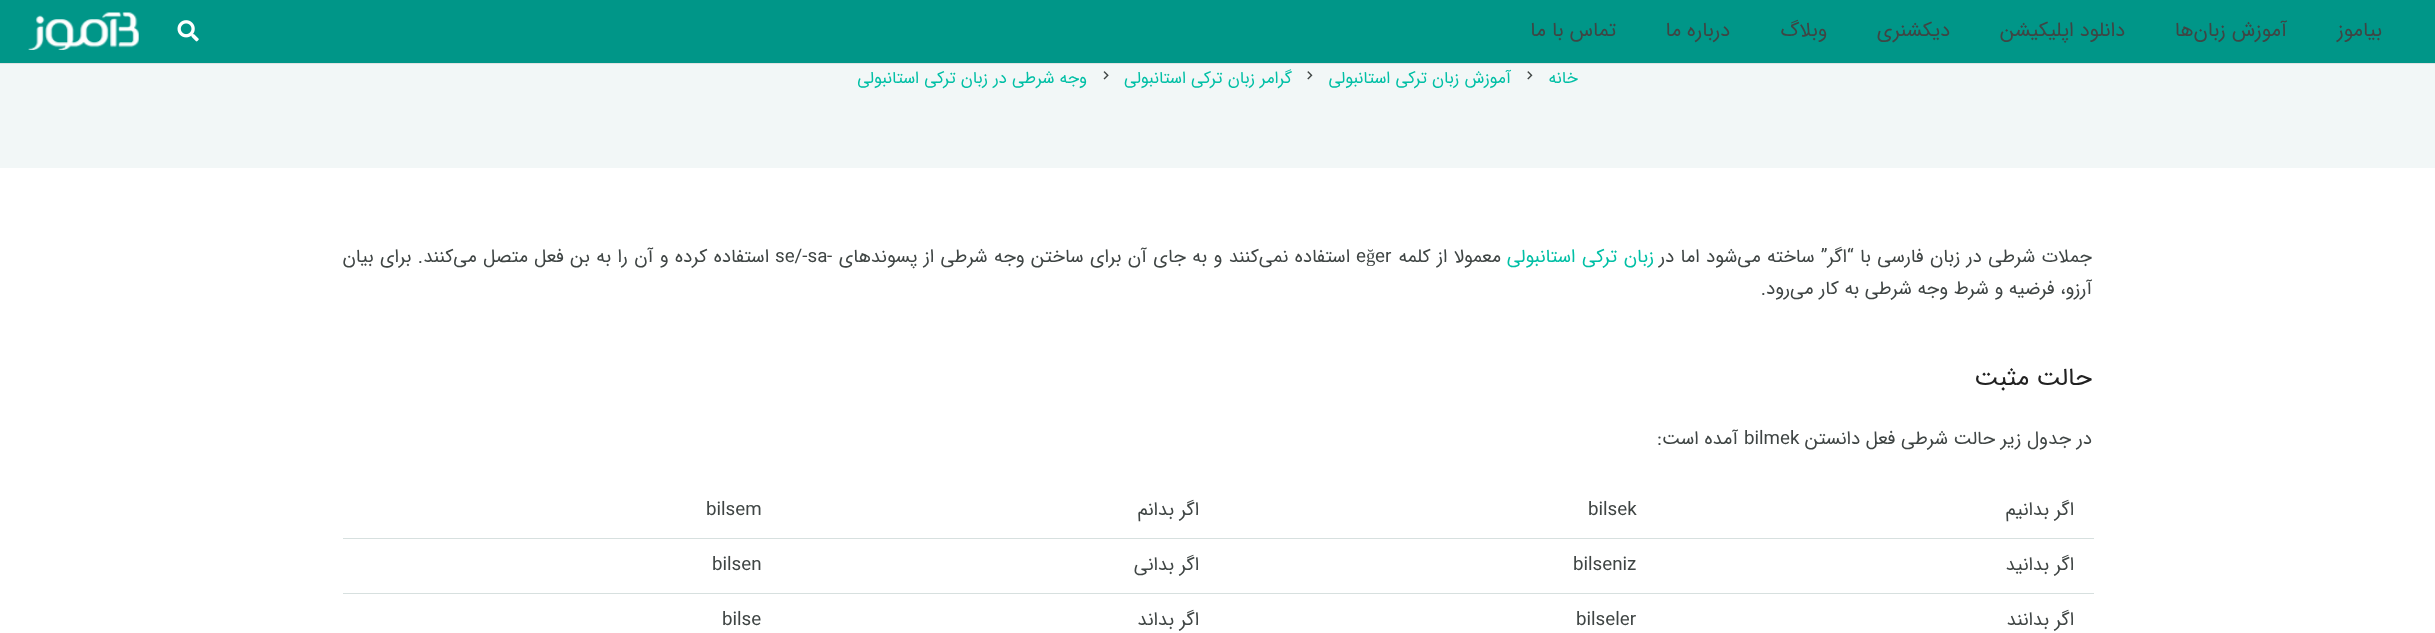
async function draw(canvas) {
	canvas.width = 2435;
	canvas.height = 633;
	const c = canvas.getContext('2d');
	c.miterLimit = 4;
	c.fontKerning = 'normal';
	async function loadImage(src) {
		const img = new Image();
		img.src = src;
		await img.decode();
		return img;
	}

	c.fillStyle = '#fff';
	c.fillRect(0, 0, 2435, 633);
	c.fillStyle = '#dfe3e3';
	c.fillRect(0, 63, 2435, 1);
	c.fillStyle = '#009688';
	c.fillRect(0, 0, 2435, 63);
	c.direction = 'rtl';
	c.font = '20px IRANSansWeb';
	c.fillStyle = '#3f4544';
	for (const [text, x, y] of [
		['بیاموز', 2382, 36],
		['آموزش زبان‌ها', 2287, 36],
		['دانلود اپلیکیشن', 2125, 36],
		['دیکشنری', 1950, 36],
		['وبلاگ', 1827, 36],
		['درباره ما', 1730, 36],
		['تماس با ما', 1616, 36],
	]) {
		c.fillText(text, x, y);
	}
	c.drawImage(await loadImage('img1.png'), 177, 20, 22, 22);
	c.drawImage(await loadImage('img2.png'), 28, 12, 111, 38);
	c.fillStyle = '#f2f7f7';
	c.fillRect(0, 64, 2435, 104);
	c.font = '16.9px IRANSansWeb';
	c.fillStyle = '#00bfa5';
	c.fillText('خانه', 1578, 83);
	c.drawImage(await loadImage('img3.png'), 1527, 71, 6, 9);
	c.fillText('آموزش زبان ترکی استانبولی', 1511, 83);
	c.drawImage(await loadImage('img3.png'), 1307, 71, 6, 9);
	c.fillText('گرامر زبان ترکی استانبولی', 1292, 83);
	c.drawImage(await loadImage('img4.png'), 1103, 71, 6, 9);
	c.fillText('وجه شرطی در زبان ترکی استانبولی', 1087, 83);
	c.wordSpacing = '0.75px';
	c.font = '18.75px IRANSansWeb';
	c.fillStyle = '#3f4544';
	c.fillText('جملات شرطی در زبان فارسی با “اگر” ساخته می‌شود اما در', 2092, 262);
	c.wordSpacing = '1px';
	c.fillStyle = '#00bfa5';
	c.fillText('زبان ترکی استانبولی', 1654, 262);
	c.wordSpacing = '0.75px';
	c.fillStyle = '#3f4544';
	c.fillText('معمولا از کلمه', 1501, 262);
	c.wordSpacing = '0px';
	c.direction = 'ltr';
	c.fillText('er', 1375, 262);
	c.font = '18.75px Liberation Serif';
	c.fillText('ğ', 1366, 262);
	c.font = '18.75px IRANSansWeb';
	c.fillText('e', 1356, 262);
	c.wordSpacing = '0.75px';
	c.direction = 'rtl';
	c.fillText('استفاده نمی‌کنند و به جای آن برای ساختن وجه شرطی از پسوندهای -', 1350, 262);
	c.wordSpacing = '0px';
	c.direction = 'ltr';
	c.fillText('se/-sa', 775, 262);
	c.wordSpacing = '0.75px';
	c.direction = 'rtl';
	c.fillText('استفاده کرده و آن را به بن فعل متصل می‌کنند. برای بیان', 769, 262);
	c.wordSpacing = '0px';
	c.fillText('آرزو، فرضیه و شرط وجه شرطی به کار می‌رود.', 2092, 294);
	c.font = '25px IRANSansWeb';
	c.fillStyle = '#212121';
	c.fillText('حالت مثبت', 2092, 385);
	c.font = '18.75px IRANSansWeb';
	c.fillStyle = '#3f4544';
	c.fillText('در جدول زیر حالت شرطی فعل دانستن', 2092, 444);
	c.direction = 'ltr';
	c.fillText('bilmek', 1744, 444);
	c.direction = 'rtl';
	c.fillText('آمده است:', 1738, 444);
	c.fillText('اگر بدانیم', 2074, 515);
	c.direction = 'ltr';
	c.fillText('bilsek', 1588, 515);
	c.direction = 'rtl';
	c.fillText('اگر بدانم', 1199, 515);
	c.fillStyle = '#d7e0df';
	c.fillRect(343, 538, 1751, 1);
	c.direction = 'ltr';
	c.fillStyle = '#3f4544';
	c.fillText('bilsem', 706, 515);
	c.direction = 'rtl';
	c.fillText('اگر بدانید', 2074, 570);
	c.direction = 'ltr';
	c.fillText('bilseniz', 1573, 570);
	c.direction = 'rtl';
	c.fillText('اگر بدانی', 1199, 570);
	c.fillStyle = '#d7e0df';
	c.fillRect(343, 593, 1751, 1);
	c.direction = 'ltr';
	c.fillStyle = '#3f4544';
	c.fillText('bilsen', 712, 570);
	c.direction = 'rtl';
	c.fillText('اگر بدانند', 2074, 625);
	c.direction = 'ltr';
	c.fillText('bilseler', 1576, 625);
	c.direction = 'rtl';
	c.fillText('اگر بداند', 1199, 625);
	c.direction = 'ltr';
	c.fillText('bilse', 722, 625);
}

draw(document.querySelector('canvas'));
